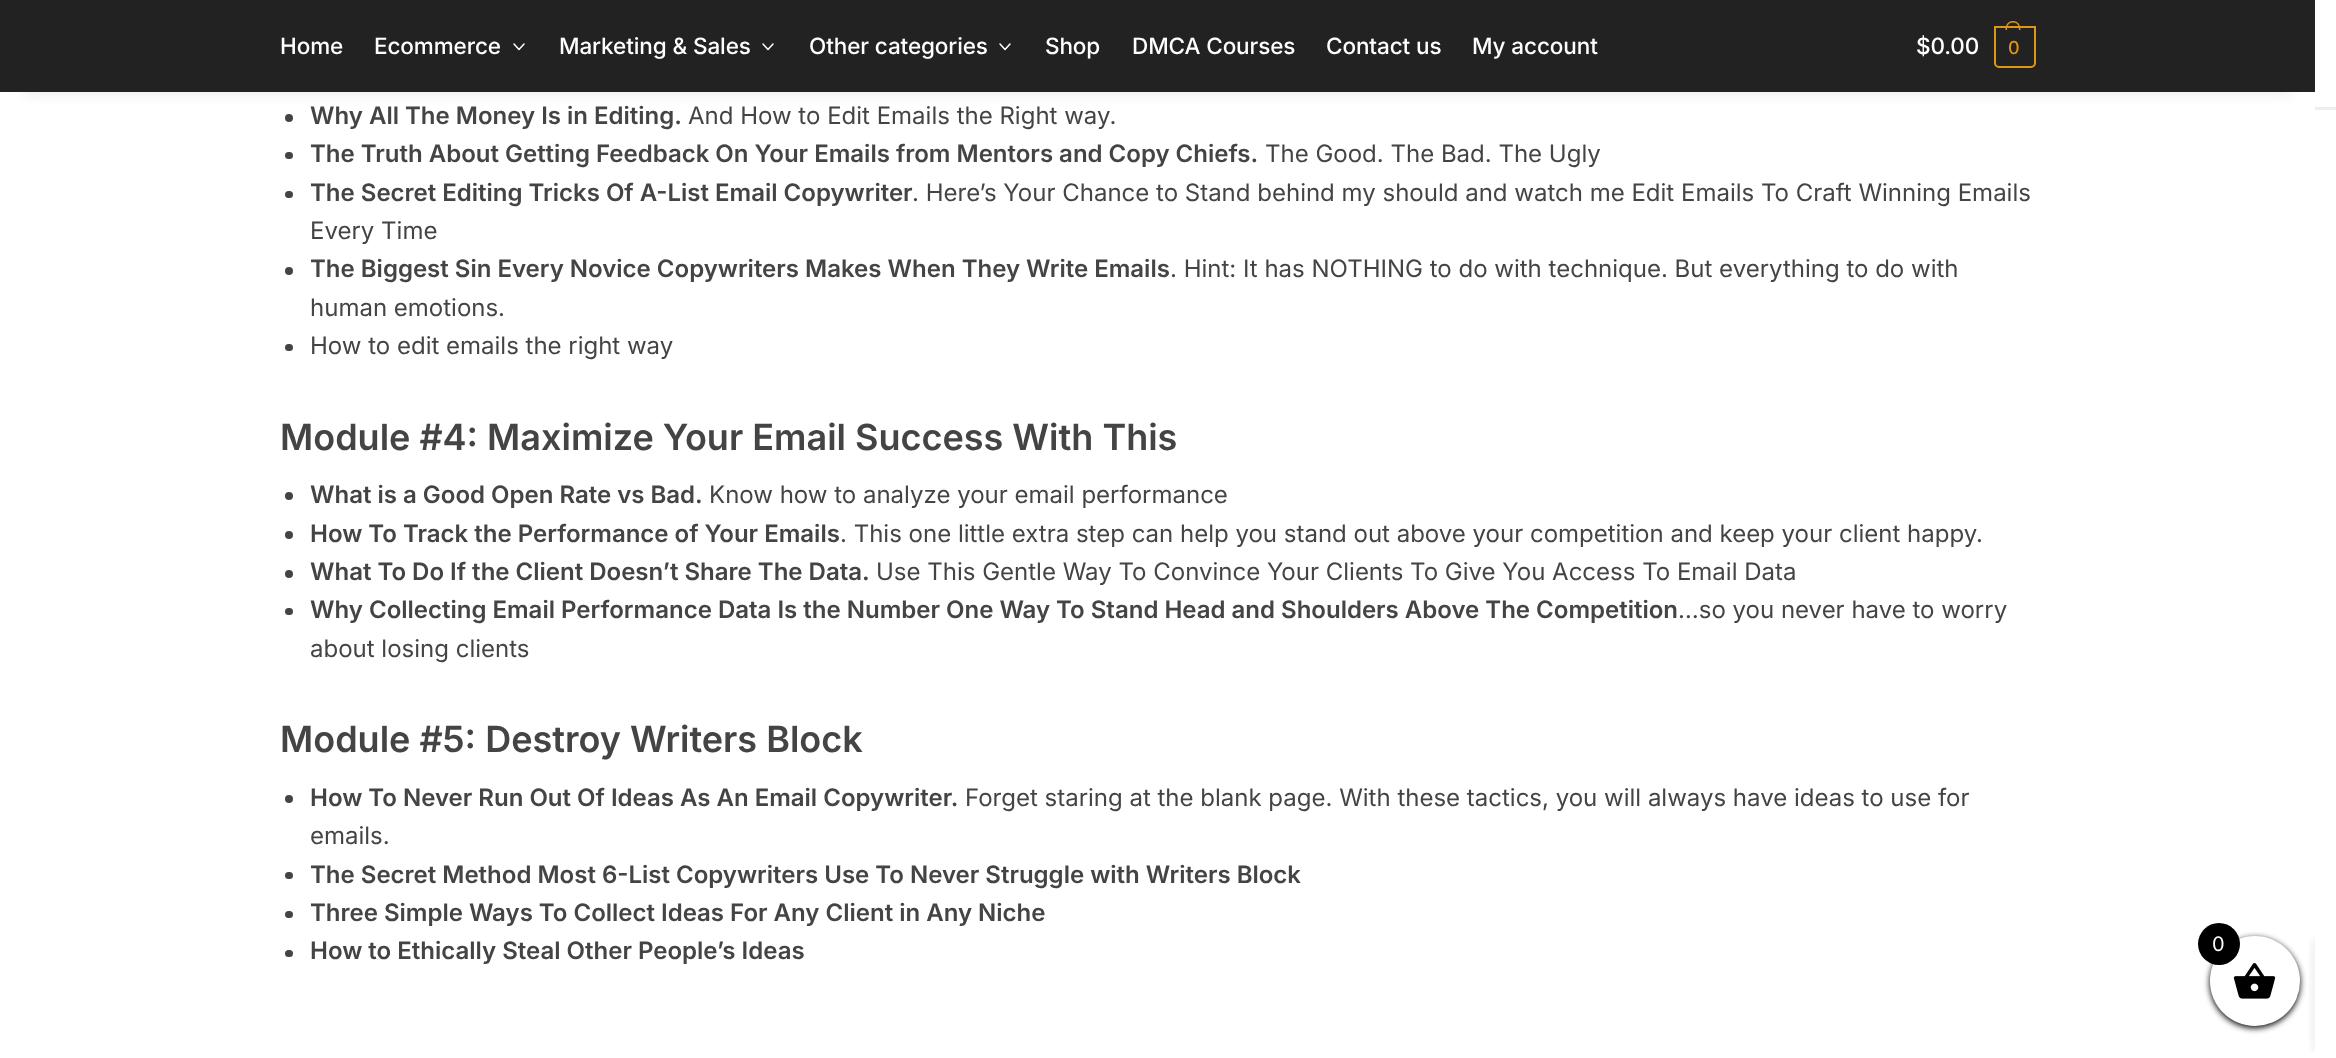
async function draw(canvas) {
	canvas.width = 2336;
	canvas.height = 1058;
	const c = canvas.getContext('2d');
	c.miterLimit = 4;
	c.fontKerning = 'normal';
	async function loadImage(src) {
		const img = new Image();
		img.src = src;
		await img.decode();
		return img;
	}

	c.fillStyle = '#fff';
	c.fillRect(0, 0, 2336, 1058);
	c.fillStyle = '#444';
	c.beginPath();
	c.arc(289, 118, 4, 0, 2 * Math.PI);
	c.fill();
	c.fillStyle = '#0000001a';
	c.filter = 'blur(7.5px)';
	c.beginPath();
	c.rect(23, 45, 2269, 47);
	c.fill();
	c.filter = 'none';
	c.fillStyle = '#222';
	c.fillRect(0, 0, 2315, 92);
	c.letterSpacing = '-0.1px';
	c.font = '500 22.5px Inter';
	c.fillStyle = '#fff';
	c.fillText('Home', 280, 54);
	c.fillText('Ecommerce', 374, 54);
	c.beginPath();
	c.moveTo(524, 44);
	c.lineTo(519, 49.5);
	c.lineTo(514, 44);
	c.strokeStyle = '#fff';
	c.lineWidth = 1.5;
	c.lineCap = 'round';
	c.lineJoin = 'round';
	c.stroke();
	c.fillText('Marketing & Sales', 559, 54);
	c.beginPath();
	c.moveTo(773, 44);
	c.lineTo(768, 49.5);
	c.lineTo(763, 44);
	c.stroke();
	c.fillText('Other categories', 809, 54);
	c.beginPath();
	c.moveTo(1010, 44);
	c.lineTo(1005, 49.5);
	c.lineTo(1000, 44);
	c.stroke();
	for (const [text, x, y] of [
		['Shop', 1045, 54],
		['DMCA Courses', 1132, 54],
		['Contact us', 1326, 54],
		['My account', 1472, 54],
		['$0.00', 1916, 54],
	]) {
		c.fillText(text, x, y);
	}
	c.beginPath();
	c.roundRect(1995, 27, 40, 40, [0, 0, 4, 4]);
	c.strokeStyle = '#dc9814';
	c.lineWidth = 2;
	c.lineJoin = 'miter';
	c.stroke();
	c.fillStyle = '#dc9814';
	c.beginPath();
	c.moveTo(2013, 21);
	c.bezierCurveTo(2018.5, 21, 2020.5, 25.5, 2020.5, 30);
	c.lineTo(2005.5, 30);
	c.bezierCurveTo(2005.5, 25.5, 2007.5, 21, 2013, 21);
	c.closePath();
	c.moveTo(2013, 22.5);
	c.bezierCurveTo(2017.5, 22.5, 2019, 26, 2019, 30);
	c.lineTo(2007, 30);
	c.bezierCurveTo(2007, 26, 2008.5, 22.5, 2013, 22.5);
	c.closePath();
	c.fill('evenodd');
	c.letterSpacing = '-1px';
	c.font = '500 18px Inter';
	c.fillText('0', 2008, 54);
	c.letterSpacing = '0px';
	c.font = '600 24px Inter';
	c.fillStyle = '#444';
	c.fillText('Why All The Money Is in Editing.', 310, 124);
	c.font = '24px Inter';
	c.fillText('And How to Edit Emails the Right way.', 688, 124);
	c.beginPath();
	c.roundRect(285, 152, 8, 7, 3.5);
	c.fill();
	c.font = '600 24px Inter';
	c.fillText('The Truth About Getting Feedback On Your Emails from Mentors and Copy Chiefs.', 310, 162);
	c.font = '24px Inter';
	c.fillText('The Good. The Bad. The Ugly', 1265, 162);
	c.beginPath();
	c.roundRect(285, 191, 8, 7, 3.5);
	c.fill();
	c.font = '600 24px Inter';
	c.fillText('The Secret Editing Tricks Of A-List Email Copywriter', 310, 201);
	c.font = '24px Inter';
	c.fillText('. Here’s Your Chance to Stand behind my should and watch me Edit Emails To Craft Winning Emails', 912, 201);
	c.fillText('Every Time', 310, 239);
	c.beginPath();
	c.arc(289, 271, 4, 0, 2 * Math.PI);
	c.fill();
	c.font = '600 24px Inter';
	c.fillText('The Biggest Sin Every Novice Copywriters Makes When They Write Emails', 310, 277);
	c.font = '24px Inter';
	c.fillText('. Hint: It has NOTHING to do with technique. But everything to do with', 1170, 277);
	c.fillText('human emotions.', 310, 316);
	c.beginPath();
	c.roundRect(285, 344, 8, 7, 3.5);
	c.fill();
	c.fillText('How to edit emails the right way', 310, 354);
	c.font = '600 36px Inter';
	c.fillText('Module #4: Maximize Your Email Success With This', 280, 450);
	c.beginPath();
	c.arc(289, 496, 4, 0, 2 * Math.PI);
	c.fill();
	c.font = '600 24px Inter';
	c.fillText('What is a Good Open Rate vs Bad.', 310, 503);
	c.font = '24px Inter';
	c.fillText('Know how to analyze your email performance', 709, 503);
	c.beginPath();
	c.arc(289, 535, 4, 0, 2 * Math.PI);
	c.fill();
	c.font = '600 24px Inter';
	c.fillText('How To Track the Performance of Your Emails', 310, 542);
	c.font = '24px Inter';
	c.fillText('. This one little extra step can help you stand out above your competition and keep your client happy.', 840, 542);
	c.beginPath();
	c.arc(289, 574, 4, 0, 2 * Math.PI);
	c.fill();
	c.font = '600 24px Inter';
	c.fillText('What To Do If the Client Doesn’t Share The Data.', 310, 580);
	c.font = '24px Inter';
	c.fillText('Use This Gentle Way To Convince Your Clients To Give You Access To Email Data', 876, 580);
	c.beginPath();
	c.roundRect(285, 608, 8, 7, 3.5);
	c.fill();
	c.font = '600 24px Inter';
	c.fillText('Why Collecting Email Performance Data Is the Number One Way To Stand Head and Shoulders Above The Competition', 310, 618);
	c.font = '24px Inter';
	c.fillText('…so you never have to worry', 1678, 618);
	c.fillText('about losing clients', 310, 657);
	c.font = '600 36px Inter';
	c.fillText('Module #5: Destroy Writers Block', 280, 752);
	c.beginPath();
	c.arc(289, 799, 4, 0, 2 * Math.PI);
	c.fill();
	c.font = '600 24px Inter';
	c.fillText('How To Never Run Out Of Ideas As An Email Copywriter.', 310, 806);
	c.font = '24px Inter';
	c.fillText('Forget staring at the blank page. With these tactics, you will always have ideas to use for', 965, 806);
	c.fillText('emails.', 310, 844);
	c.beginPath();
	c.roundRect(285, 872, 8, 7, 3.5);
	c.fill();
	c.font = '600 24px Inter';
	c.fillText('The Secret Method Most 6-List Copywriters Use To Never Struggle with Writers Block', 310, 883);
	c.beginPath();
	c.roundRect(285, 911, 8, 7, 3.5);
	c.fill();
	c.fillText('Three Simple Ways To Collect Ideas For Any Client in Any Niche', 310, 921);
	c.beginPath();
	c.roundRect(285, 950, 8, 7, 3.5);
	c.fill();
	c.fillText('How to Ethically Steal Other People’s Ideas', 310, 959);
	c.fillStyle = '#eee';
	c.fillRect(2315, 107, 21, 3);
	c.save();
	c.beginPath();
	c.rect(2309, 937, 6, 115);
	c.clip();
	c.fillStyle = '#0000001a';
	c.filter = 'blur(7.5px)';
	c.beginPath();
	c.rect(2315, 938, 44, 114);
	c.fill();
	c.filter = 'none';
	c.restore();
	c.fillStyle = '#000';
	c.filter = 'blur(3px)';
	c.beginPath();
	c.roundRect(2210, 938, 90, 90, 45);
	c.fill();
	c.filter = 'none';
	c.fillStyle = '#fff';
	c.beginPath();
	c.arc(2255, 981, 45, 0, 2 * Math.PI);
	c.fill();
	c.drawImage(await loadImage('img1.png'), 2233, 963, 43, 36);
	c.fillStyle = '#000';
	c.beginPath();
	c.arc(2219, 944, 21, 0, 2 * Math.PI);
	c.fill();
	c.font = '20px Inter';
	c.fillStyle = '#fff';
	c.fillText('0', 2212, 951);
	c.fillRect(2315, 928, 21, 17);
}

draw(document.querySelector('canvas'));
